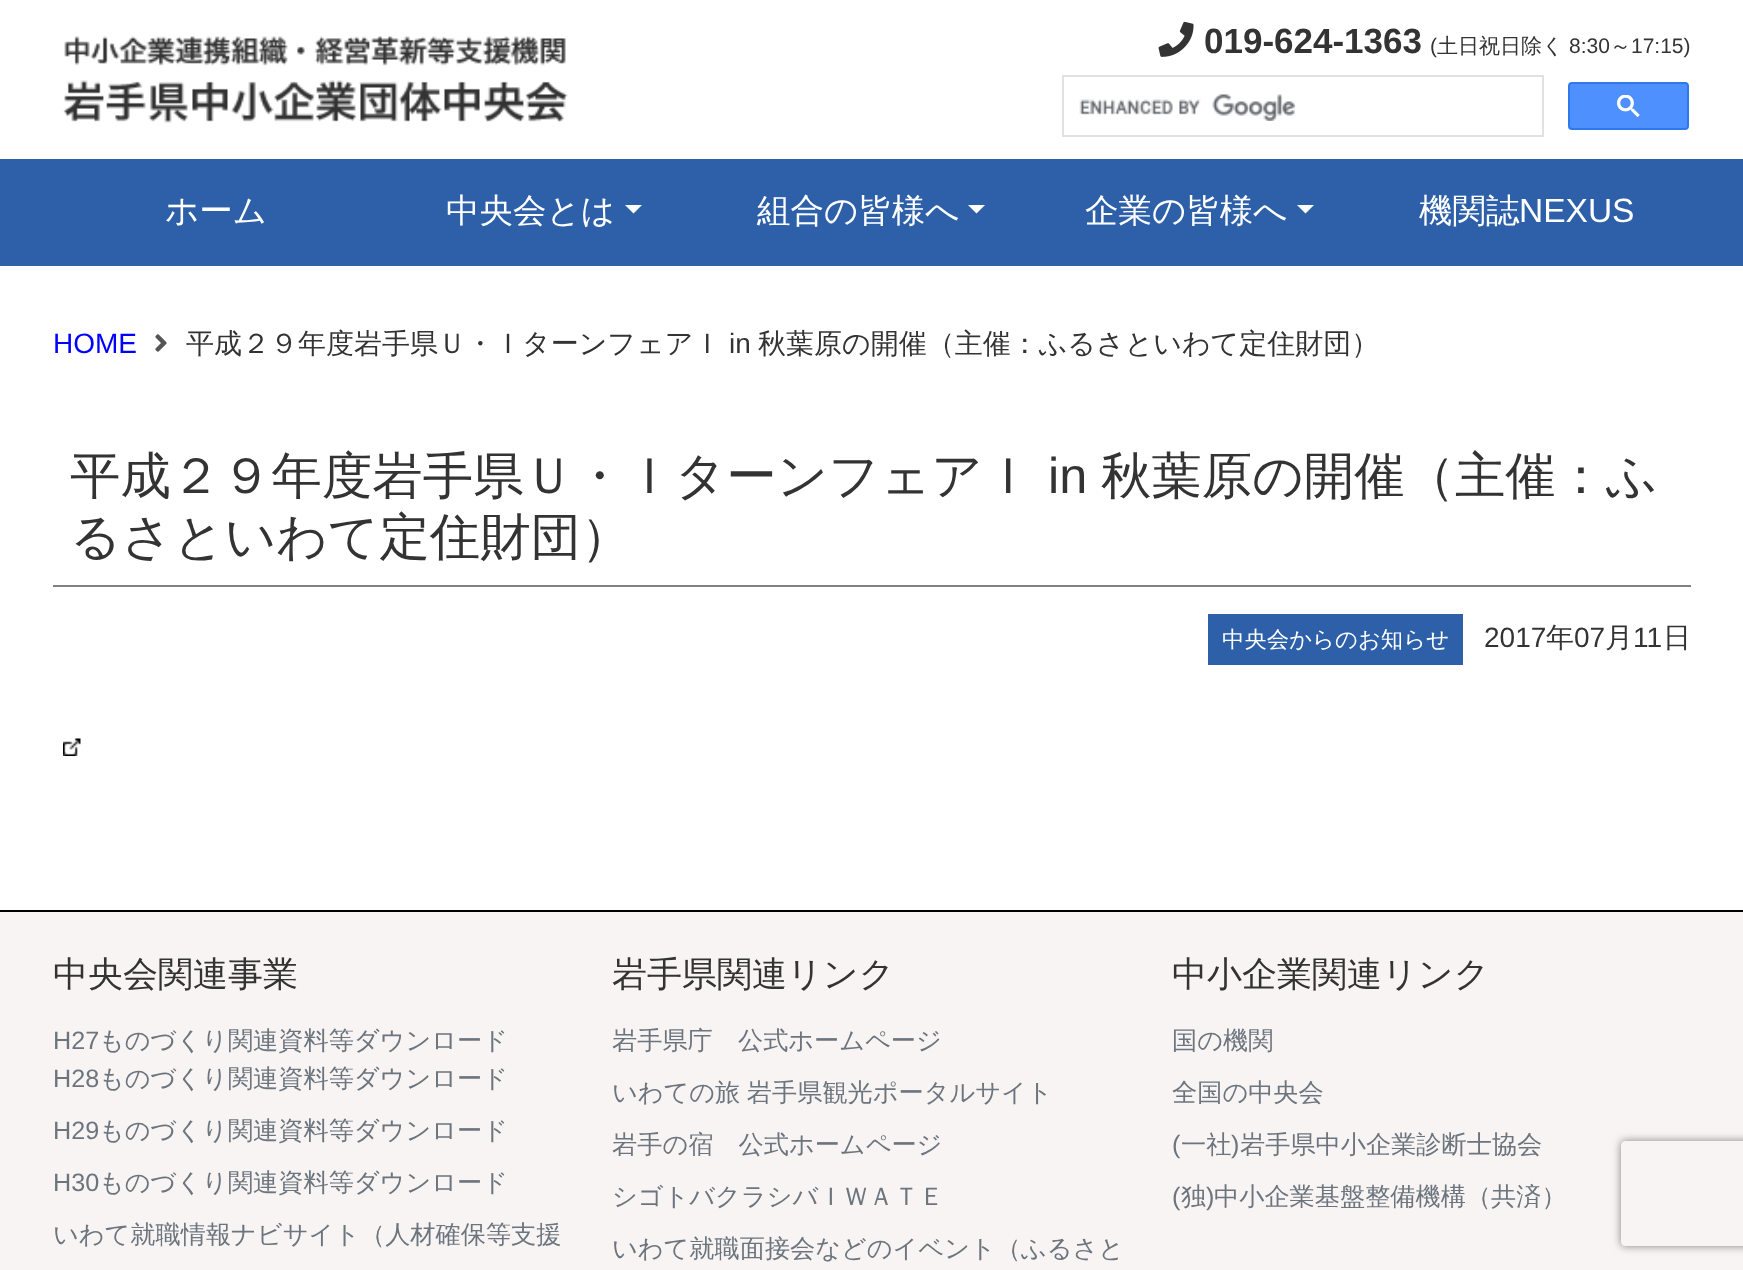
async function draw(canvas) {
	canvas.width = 1743;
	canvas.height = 1270;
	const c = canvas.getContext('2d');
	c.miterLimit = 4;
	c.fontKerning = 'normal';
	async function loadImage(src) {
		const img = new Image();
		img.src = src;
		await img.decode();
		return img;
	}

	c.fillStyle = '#fff';
	c.fillRect(0, 0, 1743, 1270);
	c.drawImage(await loadImage('img1.png'), 63, 36, 505, 87);
	c.drawImage(await loadImage('img2.png'), 1158, 21, 36, 36);
	c.font = 'bold 35px Liberation Sans';
	c.fillStyle = '#333';
	c.fillText('019-624-1363', 1204, 53);
	c.font = '21px Liberation Sans';
	c.fillText('(', 1430, 53);
	c.font = '500 21px WenQuanYi Zen Hei';
	c.fillText('土日祝日除く', 1437, 53);
	c.font = '21px Liberation Sans';
	c.fillText('8:30', 1569, 53);
	c.font = '500 21px WenQuanYi Zen Hei';
	c.fillText('～', 1610, 53);
	c.font = '21px Liberation Sans';
	c.fillText('17:15)', 1631, 53);
	c.strokeStyle = '#dfe1e5';
	c.lineWidth = 2;
	c.strokeRect(1063, 76, 480, 60);
	c.drawImage(await loadImage('img3.png'), 1079, 94, 216, 27);
	c.fillStyle = '#4d90fe';
	c.beginPath();
	c.roundRect(1569, 83, 119, 46, 3);
	c.fill();
	c.strokeStyle = '#3079ed';
	c.stroke();
	c.drawImage(await loadImage('img4.png'), 1617, 95, 23, 22);
	c.fillStyle = '#2d60a8';
	c.fillRect(0, 159, 1743, 107);
	c.font = '500 33.5px WenQuanYi Zen Hei';
	c.fillStyle = '#fff';
	c.fillText('ホーム', 165, 222);
	c.fillText('中央会とは', 446, 222);
	c.beginPath();
	c.moveTo(625, 205);
	c.lineTo(642, 205);
	c.lineTo(633.5, 213.5);
	c.closePath();
	c.fill();
	c.fillText('組合の皆様へ', 757, 222);
	c.beginPath();
	c.moveTo(968, 205);
	c.lineTo(985, 205);
	c.lineTo(976.5, 213.5);
	c.closePath();
	c.fill();
	c.fillText('企業の皆様へ', 1085, 222);
	c.beginPath();
	c.moveTo(1297, 205);
	c.lineTo(1314, 205);
	c.lineTo(1305.5, 213.5);
	c.closePath();
	c.fill();
	c.fillText('機関誌', 1419, 222);
	c.font = '33.5px Liberation Sans';
	c.fillText('NEXUS', 1519, 222);
	c.font = '28px Liberation Sans';
	c.fillStyle = '#00f';
	c.fillText('HOME', 53, 353);
	c.drawImage(await loadImage('img5.png'), 155, 334, 12, 18);
	c.font = '500 28px WenQuanYi Zen Hei';
	c.fillStyle = '#333';
	c.fillText('平成２９年度岩手県Ｕ・ＩターンフェアＩ', 186, 353);
	c.font = '28px Liberation Sans';
	c.fillText('in', 729, 353);
	c.font = '500 28px WenQuanYi Zen Hei';
	c.fillText('秋葉原の開催（主催：ふるさといわて定住財団）', 758, 353);
	c.fillStyle = '#808080';
	c.fillRect(53, 585, 1638, 2);
	c.font = '500 50.4px WenQuanYi Zen Hei';
	c.fillStyle = '#333';
	c.fillText('平成２９年度岩手県Ｕ・ＩターンフェアＩ', 70, 493);
	c.font = '50.4px Liberation Sans';
	c.fillText('in', 1048, 493);
	c.font = '500 50.4px WenQuanYi Zen Hei';
	c.fillText('秋葉原の開催（主催：ふ', 1101, 493);
	c.fillText('るさといわて定住財団）', 70, 554);
	c.fillStyle = '#2d60a8';
	c.fillRect(1208, 614, 255, 51);
	c.font = '500 22.4px WenQuanYi Zen Hei';
	c.fillStyle = '#fff';
	c.fillText('中央会からのお知らせ', 1222, 647);
	c.font = '28px Liberation Sans';
	c.fillStyle = '#333';
	c.fillText('2017', 1484, 647);
	c.font = '500 28px WenQuanYi Zen Hei';
	c.fillText('年', 1546, 647);
	c.font = '28px Liberation Sans';
	c.fillText('07', 1574, 647);
	c.font = '500 28px WenQuanYi Zen Hei';
	c.fillText('月', 1605, 647);
	c.font = '28px Liberation Sans';
	c.fillText('11', 1633, 647);
	c.font = '500 28px WenQuanYi Zen Hei';
	c.fillText('日', 1663, 647);
	c.drawImage(await loadImage('img6.png'), 63, 738, 18, 18);
	c.fillStyle = '#f9f4f4';
	c.fillRect(0, 912, 1743, 358);
	c.fillStyle = '#000';
	c.fillRect(0, 910, 1743, 2);
	c.font = '500 35px WenQuanYi Zen Hei';
	c.fillStyle = '#333';
	c.fillText('中央会関連事業', 53, 986);
	c.font = '25.2px Liberation Sans';
	c.fillStyle = '#6c757d';
	c.fillText('H27', 53, 1049);
	c.font = '500 25.2px WenQuanYi Zen Hei';
	c.fillText('ものづくり関連資料等ダウンロード', 99, 1049);
	c.font = '25.2px Liberation Sans';
	c.fillText('H28', 53, 1087);
	c.font = '500 25.2px WenQuanYi Zen Hei';
	c.fillText('ものづくり関連資料等ダウンロード', 99, 1087);
	c.font = '25.2px Liberation Sans';
	c.fillText('H29', 53, 1139);
	c.font = '500 25.2px WenQuanYi Zen Hei';
	c.fillText('ものづくり関連資料等ダウンロード', 99, 1139);
	c.font = '25.2px Liberation Sans';
	c.fillText('H30', 53, 1191);
	c.font = '500 25.2px WenQuanYi Zen Hei';
	c.fillText('ものづくり関連資料等ダウンロード', 99, 1191);
	c.fillText('いわて就職情報ナビサイト（人材確保等支援', 53, 1243);
	c.font = '500 35px WenQuanYi Zen Hei';
	c.fillStyle = '#333';
	c.fillText('岩手県関連リンク', 612, 986);
	c.font = '500 25.2px WenQuanYi Zen Hei';
	c.fillStyle = '#6c757d';
	c.fillText('岩手県庁　公式ホームページ', 612, 1049);
	c.wordSpacing = '-1px';
	c.fillText('いわての旅 岩手県観光ポータルサイト', 612, 1101);
	c.wordSpacing = '0px';
	for (const [text, x, y] of [
		['岩手の宿　公式ホームページ', 612, 1153],
		['シゴトバクラシバＩＷＡＴＥ', 612, 1205],
		['いわて就職面接会などのイベント（ふるさと', 612, 1257],
	]) {
		c.fillText(text, x, y);
	}
	c.font = '500 35px WenQuanYi Zen Hei';
	c.fillStyle = '#333';
	c.fillText('中小企業関連リンク', 1172, 986);
	c.font = '500 25.2px WenQuanYi Zen Hei';
	c.fillStyle = '#6c757d';
	c.fillText('国の機関', 1172, 1049);
	c.fillText('全国の中央会', 1172, 1101);
	c.font = '25.2px Liberation Sans';
	c.fillText('(', 1172, 1153);
	c.font = '500 25.2px WenQuanYi Zen Hei';
	c.fillText('一社', 1181, 1153);
	c.font = '25.2px Liberation Sans';
	c.fillText(')', 1231, 1153);
	c.font = '500 25.2px WenQuanYi Zen Hei';
	c.fillText('岩手県中小企業診断士協会', 1240, 1153);
	c.font = '25.2px Liberation Sans';
	c.fillText('(', 1172, 1205);
	c.font = '500 25.2px WenQuanYi Zen Hei';
	c.fillText('独', 1181, 1205);
	c.font = '25.2px Liberation Sans';
	c.fillText(')', 1206, 1205);
	c.font = '500 25.2px WenQuanYi Zen Hei';
	c.fillText('中小企業基盤整備機構（共済）', 1214, 1205);
	c.save();
	c.beginPath();
	c.moveTo(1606, 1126);
	c.lineTo(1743, 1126);
	c.lineTo(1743, 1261);
	c.lineTo(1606, 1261);
	c.closePath();
	c.moveTo(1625, 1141);
	c.lineTo(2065, 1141);
	c.bezierCurveTo(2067, 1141, 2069, 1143, 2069, 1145);
	c.lineTo(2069, 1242);
	c.bezierCurveTo(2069, 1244, 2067, 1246, 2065, 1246);
	c.lineTo(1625, 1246);
	c.bezierCurveTo(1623, 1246, 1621, 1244, 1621, 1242);
	c.lineTo(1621, 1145);
	c.bezierCurveTo(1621, 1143, 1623, 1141, 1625, 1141);
	c.closePath();
	c.clip('evenodd');
	c.fillStyle = '#808080';
	c.filter = 'blur(4.5px)';
	c.beginPath();
	c.roundRect(1621, 1141, 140, 105, 4);
	c.fill();
	c.filter = 'none';
	c.restore();
}

draw(document.querySelector('canvas'));
